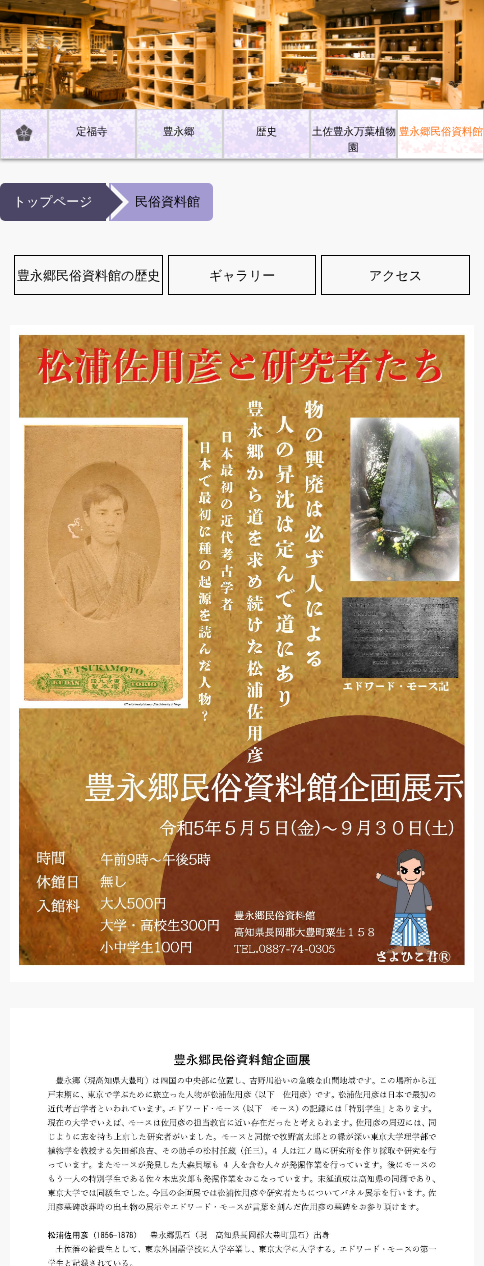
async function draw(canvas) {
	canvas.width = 484;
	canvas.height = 1266;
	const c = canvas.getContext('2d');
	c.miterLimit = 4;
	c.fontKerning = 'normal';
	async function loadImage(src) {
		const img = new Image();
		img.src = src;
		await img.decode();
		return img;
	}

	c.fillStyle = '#f8f8f8';
	c.fillRect(0, 0, 484, 1266);
	c.fillStyle = '#333';
	c.filter = 'blur(2px)';
	c.beginPath();
	c.rect(0, 0, 484, 159);
	c.fill();
	c.filter = 'none';
	c.drawImage(await loadImage('img1.png'), 0, 0, 484, 109);
	c.fillStyle = '#e6ddf8';
	c.fillRect(1, 110, 46, 48);
	c.drawImage(await loadImage('img2.png'), 1, 110, 46, 48);
	c.strokeStyle = '#d2d2d2';
	c.strokeRect(0.5, 109.5, 47, 49);
	c.drawImage(await loadImage('img3.png'), 15, 124, 18, 18);
	c.fillRect(49, 110, 86, 48);
	c.drawImage(await loadImage('img4.png'), 49, 110, 86, 48);
	c.strokeRect(48.5, 109.5, 87, 49);
	c.font = '500 10.5px WenQuanYi Zen Hei';
	c.fillStyle = '#000';
	c.fillText('定福寺', 76, 135);
	c.fillStyle = '#e6ddf8';
	c.fillRect(137, 110, 85, 48);
	c.drawImage(await loadImage('img5.png'), 137, 110, 85, 48);
	c.strokeRect(136.5, 109.5, 86, 49);
	c.fillStyle = '#000';
	c.fillText('豊永郷', 163, 135);
	c.fillStyle = '#e6ddf8';
	c.fillRect(224, 110, 85, 48);
	c.drawImage(await loadImage('img6.png'), 224, 110, 85, 48);
	c.strokeRect(223.5, 109.5, 86, 49);
	c.fillStyle = '#000';
	c.fillText('歴史', 256, 135);
	c.fillStyle = '#e6ddf8';
	c.fillRect(311, 110, 85, 48);
	c.drawImage(await loadImage('img6.png'), 311, 110, 85, 48);
	c.strokeRect(310.5, 109.5, 86, 49);
	c.fillStyle = '#000';
	c.fillText('土佐豊永万葉植物', 312, 135);
	c.fillText('園', 348, 151);
	c.fillStyle = '#fff';
	c.fillRect(398, 110, 85, 48);
	c.drawImage(await loadImage('img7.png'), 398, 110, 85, 43);
	c.strokeRect(397.5, 109.5, 86, 49);
	c.fillStyle = '#ff7216';
	c.fillText('豊永郷民俗資料館', 399, 135);
	c.fillStyle = '#4b4665';
	c.beginPath();
	c.roundRect(0, 183, 106, 38, [5, 0, 0, 5]);
	c.fill();
	c.fillStyle = '#a39ad2';
	c.beginPath();
	c.roundRect(109, 183, 104, 38, [0, 5, 5, 0]);
	c.fill();
	c.fillStyle = '#f8f8f8';
	c.beginPath();
	c.moveTo(111, 220);
	c.lineTo(111, 184);
	c.lineTo(129, 202);
	c.closePath();
	c.fill();
	c.fillStyle = '#4b4665';
	c.beginPath();
	c.moveTo(105, 220);
	c.lineTo(105, 184);
	c.lineTo(123, 202);
	c.closePath();
	c.fill();
	c.font = '500 13px WenQuanYi Zen Hei';
	c.fillStyle = '#fff';
	c.fillText('トップページ', 13, 206);
	c.fillStyle = '#000';
	c.fillText('民俗資料館', 135, 206);
	c.strokeStyle = '#000';
	c.strokeRect(14.5, 255.5, 148, 39);
	c.fillText('豊永郷民俗資料館の歴史', 17, 280);
	c.strokeRect(168.5, 255.5, 147, 39);
	c.fillText('ギャラリー', 209, 280);
	c.strokeRect(321.5, 255.5, 148, 39);
	c.fillText('アクセス', 369, 280);
	c.drawImage(await loadImage('img8.png'), 10, 325, 464, 657);
	c.drawImage(await loadImage('img9.png'), 10, 1008, 464, 258);
}

draw(document.querySelector('canvas'));
